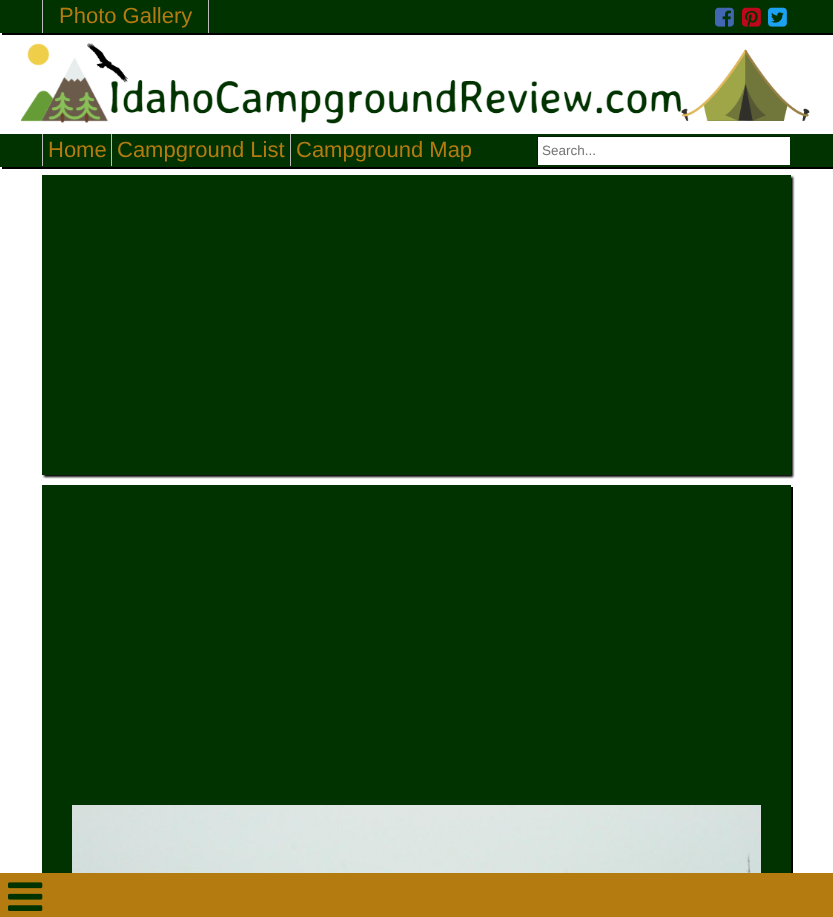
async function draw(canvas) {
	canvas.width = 833;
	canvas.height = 917;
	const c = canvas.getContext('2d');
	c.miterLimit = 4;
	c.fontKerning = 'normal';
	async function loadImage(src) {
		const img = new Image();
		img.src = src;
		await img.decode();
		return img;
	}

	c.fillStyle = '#fff';
	c.fillRect(0, 0, 833, 917);
	c.fillStyle = '#000';
	c.filter = 'blur(0.5px)';
	c.beginPath();
	c.rect(2, 2, 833, 33);
	c.fill();
	c.filter = 'none';
	c.fillStyle = '#030';
	c.fillRect(0, 0, 833, 33);
	c.font = '22px Liberation Sans';
	c.fillStyle = '#b47b10';
	c.fillText('Photo Gallery', 59, 23);
	c.fillStyle = '#bbb';
	c.fillRect(208, 0, 1, 33);
	c.fillRect(42, 0, 1, 33);
	c.drawImage(await loadImage('img1.png'), 715, 7, 19, 20);
	c.drawImage(await loadImage('img2.png'), 742, 7, 19, 20);
	c.drawImage(await loadImage('img3.png'), 768, 7, 19, 20);
	c.drawImage(await loadImage('img4.png'), 21, 43, 789, 81);
	c.fillStyle = '#000';
	c.filter = 'blur(0.5px)';
	c.beginPath();
	c.rect(2, 136, 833, 33);
	c.fill();
	c.filter = 'none';
	c.fillStyle = '#030';
	c.fillRect(0, 134, 833, 33);
	c.fillStyle = '#bbb';
	c.fillRect(42, 134, 1, 32);
	c.fillStyle = '#b47b10';
	c.fillText('Home', 48, 157);
	c.fillStyle = '#bbb';
	c.fillRect(111, 134, 1, 32);
	c.fillStyle = '#b47b10';
	c.fillText('Campground List', 117, 157);
	c.fillStyle = '#bbb';
	c.fillRect(290, 134, 1, 32);
	c.fillStyle = '#b47b10';
	c.fillText('Campground Map', 296, 157);
	for (const [x, y, w, h, color] of [
		[538, 137, 252, 28, '#fff'],
		[537, 136, 254, 1, '#020'],
		[790, 136, 1, 1, '#030'],
		[537, 136, 1, 30, '#020'],
	]) {
		c.fillStyle = color;
		c.fillRect(x, y, w, h);
	}
	c.font = '13.5px Liberation Sans';
	c.fillStyle = '#757575';
	c.fillText('Search...', 542, 155);
	c.fillStyle = '#000';
	c.filter = 'blur(1px)';
	c.beginPath();
	c.rect(44, 177, 749, 300);
	c.fill();
	c.filter = 'none';
	c.fillStyle = '#030';
	c.fillRect(42, 175, 749, 300);
	c.fillStyle = '#000';
	c.filter = 'blur(0.5px)';
	c.beginPath();
	c.rect(44, 487, 749, 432);
	c.fill();
	c.filter = 'none';
	c.fillStyle = '#030';
	c.fillRect(42, 485, 749, 388);
	c.drawImage(await loadImage('img5.png'), 72, 805, 689, 68);
	c.fillStyle = '#b47b10';
	c.fillRect(0, 873, 833, 44);
	c.drawImage(await loadImage('img6.png'), 8, 882, 35, 29);
}

draw(document.querySelector('canvas'));
